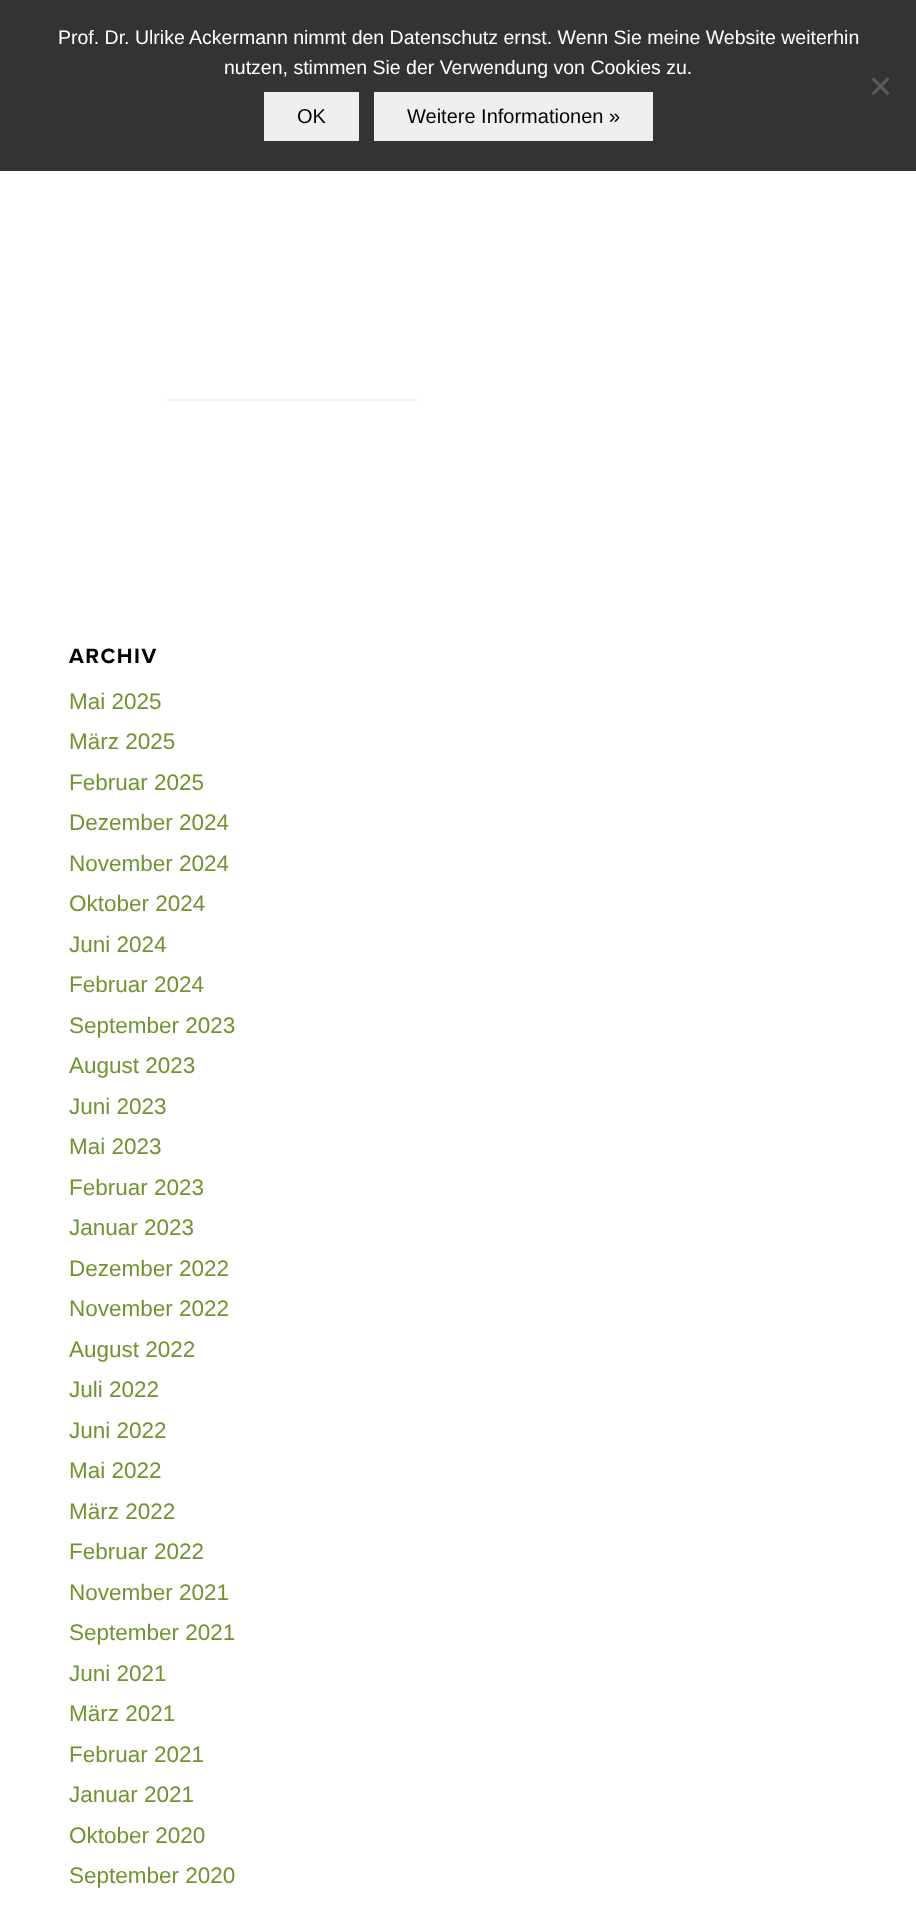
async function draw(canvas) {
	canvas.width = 916;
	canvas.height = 1918;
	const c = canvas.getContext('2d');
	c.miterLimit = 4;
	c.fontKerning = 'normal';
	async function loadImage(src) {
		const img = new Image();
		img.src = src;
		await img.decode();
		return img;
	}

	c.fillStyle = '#fff';
	c.fillRect(0, 0, 916, 1918);
	c.fillStyle = '#333';
	c.fillRect(0, 0, 916, 171);
	c.font = '19.5px Liberation Sans';
	c.fillStyle = '#fff';
	c.fillText('Prof. Dr. Ulrike Ackermann nimmt den Datenschutz ernst. Wenn Sie meine Website weiterhin', 58, 44);
	c.fillText('nutzen, stimmen Sie der Verwendung von Cookies zu.', 224, 74);
	c.fillStyle = '#5a5a5a';
	c.beginPath();
	c.moveTo(887.5, 77);
	c.lineTo(889.5, 79.5);
	c.lineTo(873.5, 95.5);
	c.lineTo(871.5, 93);
	c.closePath();
	c.fill();
	c.beginPath();
	c.moveTo(871.5, 79.5);
	c.lineTo(873.5, 77);
	c.lineTo(889.5, 93);
	c.lineTo(887.5, 95.5);
	c.closePath();
	c.fill();
	c.fillStyle = '#efefef';
	c.fillRect(264, 92, 95, 49);
	c.font = '20px Liberation Sans';
	c.fillStyle = '#000';
	c.fillText('OK', 297, 123);
	c.fillStyle = '#efefef';
	c.fillRect(374, 92, 279, 49);
	c.fillStyle = '#000';
	c.fillText('Weitere Informationen »', 407, 123);
	c.drawImage(await loadImage('img1.png'), 166, 398, 252, 4);
	c.letterSpacing = '1.5px';
	c.font = 'bold 21.5px Proxima Nova';
	c.fillText('ARCHIV', 69, 663);
	c.letterSpacing = '0px';
	c.font = '22.5px Liberation Sans';
	c.fillStyle = '#719430';
	for (const [text, x, y] of [
		['Mai 2025', 69, 709],
		['März 2025', 69, 749],
		['Februar 2025', 69, 790],
		['Dezember 2024', 69, 830],
		['November 2024', 69, 871],
		['Oktober 2024', 69, 911],
		['Juni 2024', 69, 952],
		['Februar 2024', 69, 992],
		['September 2023', 69, 1033],
		['August 2023', 69, 1073],
		['Juni 2023', 69, 1114],
		['Mai 2023', 69, 1154],
		['Februar 2023', 69, 1195],
		['Januar 2023', 69, 1235],
		['Dezember 2022', 69, 1276],
		['November 2022', 69, 1316],
		['August 2022', 69, 1357],
		['Juli 2022', 69, 1397],
		['Juni 2022', 69, 1438],
		['Mai 2022', 69, 1478],
		['März 2022', 69, 1519],
		['Februar 2022', 69, 1559],
		['November 2021', 69, 1600],
		['September 2021', 69, 1640],
		['Juni 2021', 69, 1681],
		['März 2021', 69, 1721],
		['Februar 2021', 69, 1762],
		['Januar 2021', 69, 1802],
		['Oktober 2020', 69, 1843],
		['September 2020', 69, 1883],
	]) {
		c.fillText(text, x, y);
	}
}

draw(document.querySelector('canvas'));
